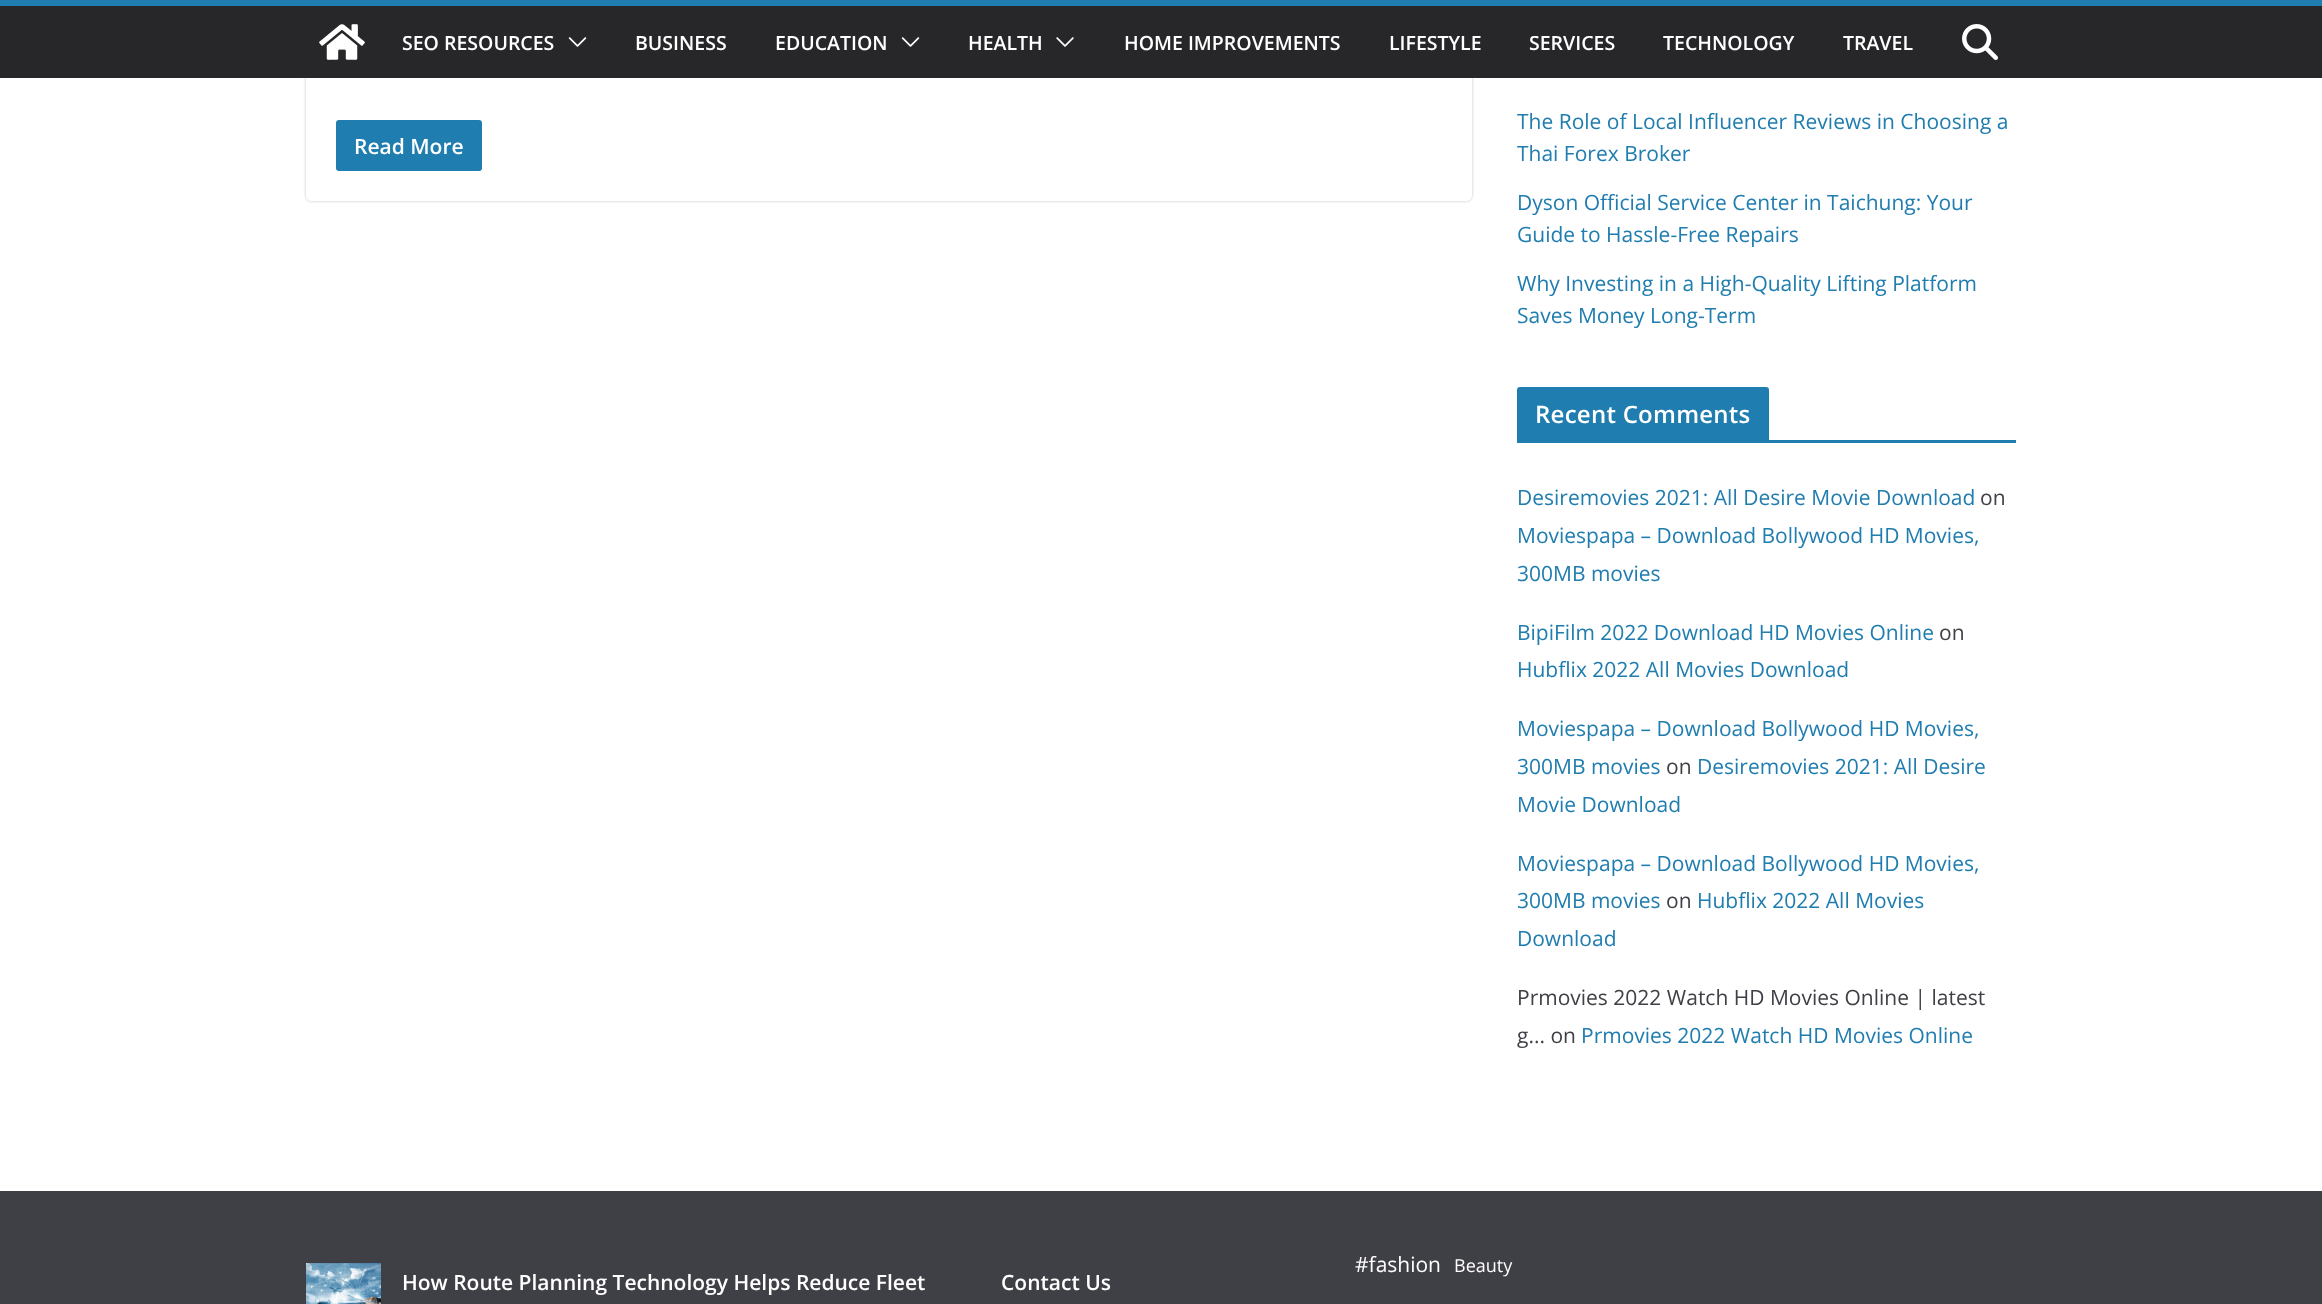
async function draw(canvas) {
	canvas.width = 2322;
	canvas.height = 1304;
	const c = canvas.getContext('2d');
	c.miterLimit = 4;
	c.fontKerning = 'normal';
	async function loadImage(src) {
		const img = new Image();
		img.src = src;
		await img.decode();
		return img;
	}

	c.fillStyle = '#fff';
	c.fillRect(0, 0, 2322, 1304);
	c.save();
	c.beginPath();
	c.moveTo(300, 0);
	c.lineTo(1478, 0);
	c.lineTo(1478, 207);
	c.lineTo(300, 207);
	c.closePath();
	c.moveTo(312, -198);
	c.lineTo(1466, -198);
	c.bezierCurveTo(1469.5, -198, 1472, -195.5, 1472, -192);
	c.lineTo(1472, 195);
	c.bezierCurveTo(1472, 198.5, 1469.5, 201, 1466, 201);
	c.lineTo(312, 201);
	c.bezierCurveTo(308.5, 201, 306, 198.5, 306, 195);
	c.lineTo(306, -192);
	c.bezierCurveTo(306, -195.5, 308.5, -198, 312, -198);
	c.closePath();
	c.clip('evenodd');
	c.fillStyle = '#0000003d';
	c.filter = 'blur(1.5px)';
	c.beginPath();
	c.roundRect(306, -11, 1166, 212, 6);
	c.fill();
	c.filter = 'none';
	c.restore();
	c.fillStyle = '#27272a';
	c.fillRect(0, 6, 2322, 72);
	c.fillStyle = '#207daf';
	c.fillRect(0, 0, 2322, 6);
	c.drawImage(await loadImage('img1.png'), 319, 24, 46, 36);
	c.font = '600 19.5px Open Sans';
	c.fillStyle = '#fff';
	c.fillText('SEO RESOURCES', 402, 50);
	c.drawImage(await loadImage('img2.png'), 568, 37, 19, 10);
	c.fillText('BUSINESS', 635, 50);
	c.fillText('EDUCATION', 775, 50);
	c.drawImage(await loadImage('img2.png'), 901, 37, 19, 10);
	c.fillText('HEALTH', 968, 50);
	c.drawImage(await loadImage('img3.png'), 1056, 37, 18, 10);
	for (const [text, x, y] of [
		['HOME IMPROVEMENTS', 1124, 50],
		['LIFESTYLE', 1389, 50],
		['SERVICES', 1529, 50],
		['TECHNOLOGY', 1663, 50],
		['TRAVEL', 1843, 50],
	]) {
		c.fillText(text, x, y);
	}
	c.drawImage(await loadImage('img4.png'), 1962, 24, 36, 36);
	c.fillStyle = '#207daf';
	c.beginPath();
	c.roundRect(336, 120, 146, 51, 3);
	c.fill();
	c.font = '600 21px Open Sans';
	c.fillStyle = '#fff';
	c.fillText('Read More', 354, 154);
	c.font = '21px Open Sans';
	c.fillStyle = '#207daf';
	for (const [text, x, y] of [
		['The Role of Local Influencer Reviews in Choosing a', 1517, 129],
		['Thai Forex Broker', 1517, 161],
		['Dyson Official Service Center in Taichung: Your', 1517, 210],
		['Guide to Hassle-Free Repairs', 1517, 242],
		['Why Investing in a High-Quality Lifting Platform', 1517, 291],
		['Saves Money Long-Term', 1517, 323],
	]) {
		c.fillText(text, x, y);
	}
	c.fillRect(1517, 440, 499, 3);
	c.beginPath();
	c.roundRect(1517, 387, 252, 53, [3, 3, 0, 0]);
	c.fill();
	c.letterSpacing = '0.25px';
	c.font = '600 24px Open Sans';
	c.fillStyle = '#fff';
	c.fillText('Recent Comments', 1535, 423);
	c.letterSpacing = '0px';
	c.font = '21px Open Sans';
	c.fillStyle = '#207daf';
	c.fillText('Desiremovies 2021: All Desire Movie Download', 1517, 505);
	c.fillStyle = '#3f3f46';
	c.fillText('on', 1980, 505);
	c.fillStyle = '#207daf';
	for (const [text, x, y] of [
		['Moviespapa – Download Bollywood HD Movies,', 1517, 543],
		['300MB movies', 1517, 581],
		['BipiFilm 2022 Download HD Movies Online', 1517, 640],
	]) {
		c.fillText(text, x, y);
	}
	c.fillStyle = '#3f3f46';
	c.fillText('on', 1939, 640);
	c.fillStyle = '#207daf';
	for (const [text, x, y] of [
		['Hubflix 2022 All Movies Download', 1517, 677],
		['Moviespapa – Download Bollywood HD Movies,', 1517, 736],
		['300MB movies', 1517, 774],
	]) {
		c.fillText(text, x, y);
	}
	c.fillStyle = '#3f3f46';
	c.fillText('on', 1666, 774);
	c.fillStyle = '#207daf';
	for (const [text, x, y] of [
		['Desiremovies 2021: All Desire', 1697, 774],
		['Movie Download', 1517, 812],
		['Moviespapa – Download Bollywood HD Movies,', 1517, 871],
		['300MB movies', 1517, 908],
	]) {
		c.fillText(text, x, y);
	}
	c.fillStyle = '#3f3f46';
	c.fillText('on', 1666, 908);
	c.fillStyle = '#207daf';
	c.fillText('Hubflix 2022 All Movies', 1697, 908);
	c.fillText('Download', 1517, 946);
	c.fillStyle = '#3f3f46';
	c.fillText('Prmovies 2022 Watch HD Movies Online | latest', 1517, 1005);
	c.fillText('g... on', 1517, 1043);
	c.fillStyle = '#207daf';
	c.fillText('Prmovies 2022 Watch HD Movies Online', 1581, 1043);
	c.fillStyle = '#3f3f46';
	c.fillRect(0, 1191, 2322, 113);
	c.fillStyle = '#fff';
	c.fillText('#fashion', 1355, 1272);
	c.font = '18px Open Sans';
	c.fillText('Beauty', 1454, 1272);
	c.drawImage(await loadImage('img5.png'), 306, 1263, 75, 41);
	c.font = '600 21px Open Sans';
	c.fillText('How Route Planning Technology Helps Reduce Fleet', 402, 1290);
	c.fillText('Contact Us', 1001, 1290);
}

draw(document.querySelector('canvas'));
